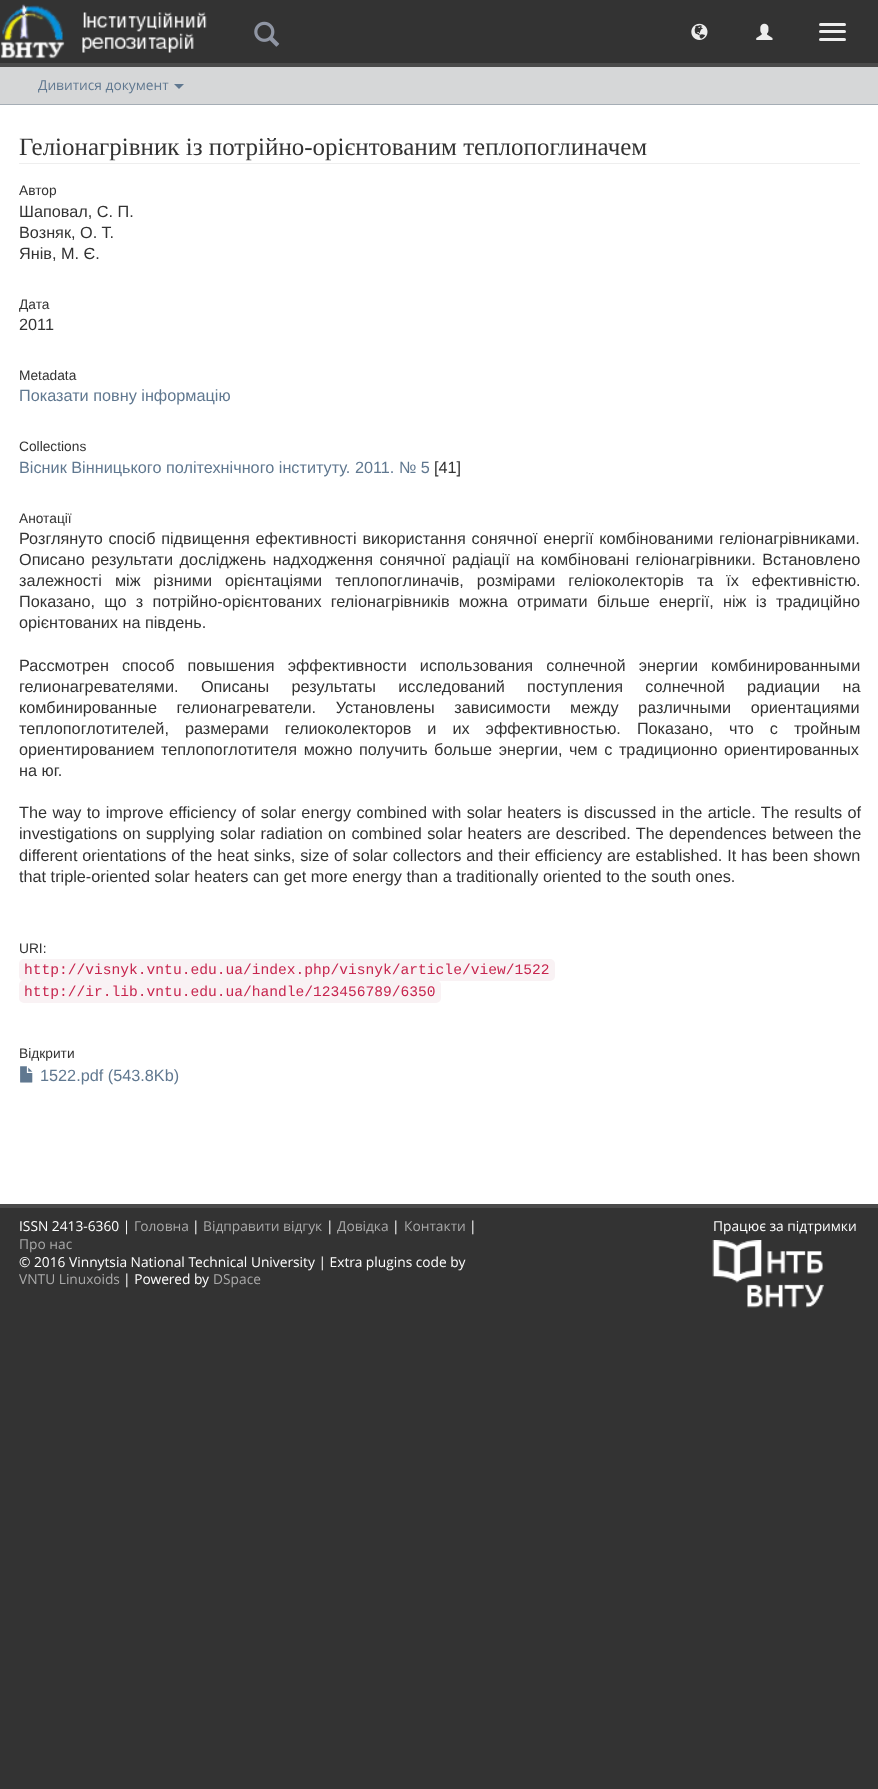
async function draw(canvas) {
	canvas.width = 878;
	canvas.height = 1789;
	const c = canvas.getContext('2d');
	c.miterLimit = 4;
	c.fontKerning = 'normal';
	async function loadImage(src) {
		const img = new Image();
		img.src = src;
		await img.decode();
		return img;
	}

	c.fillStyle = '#333';
	c.fillRect(0, 0, 878, 1789);
	c.fillStyle = '#4a4a4a';
	c.fillRect(0, 63, 878, 4);
	c.drawImage(await loadImage('img1.png'), 0, 4, 65, 55);
	c.drawImage(await loadImage('img2.png'), 82, 12, 125, 41);
	c.drawImage(await loadImage('img3.png'), 254, 21, 26, 26);
	c.drawImage(await loadImage('img4.png'), 691, 23, 17, 17);
	c.drawImage(await loadImage('img5.png'), 756, 23, 17, 17);
	c.fillStyle = '#eee';
	c.beginPath();
	c.roundRect(819, 23, 27, 3, 1.5);
	c.fill();
	c.beginPath();
	c.roundRect(819, 30, 27, 3, 1.5);
	c.fill();
	c.beginPath();
	c.roundRect(819, 38, 27, 3, 1.5);
	c.fill();
	c.fillStyle = '#d6d7d8';
	c.fillRect(0, 67, 878, 37);
	c.fillStyle = '#a5adb5';
	c.fillRect(0, 104, 878, 1);
	c.font = '13.75px Open Sans';
	c.fillStyle = '#607890';
	c.fillText('Дивитися документ', 38, 90);
	c.beginPath();
	c.moveTo(174, 84);
	c.lineTo(184, 84);
	c.lineTo(179, 89);
	c.closePath();
	c.fill();
	c.fillStyle = '#fff';
	c.fillRect(0, 105, 878, 1099);
	c.fillStyle = '#eee';
	c.fillRect(19, 163, 841, 1);
	c.font = '25px Liberation Serif';
	c.fillStyle = '#333';
	c.fillText('Геліонагрівник із потрійно-орієнтованим теплопоглиначем', 19, 155);
	c.font = '13.75px Liberation Sans';
	c.fillText('Автор', 19, 195);
	c.font = '16.25px Liberation Sans';
	for (const [text, x, y] of [
		['Шаповал, С. П.', 19, 217],
		['Возняк, O. T.', 19, 238],
		['Янів, М. Є.', 19, 259],
	]) {
		c.fillText(text, x, y);
	}
	c.font = '13.75px Liberation Sans';
	c.fillText('Дата', 19, 309);
	c.font = '16.25px Liberation Sans';
	c.fillText('2011', 19, 330);
	c.font = '13.75px Liberation Sans';
	c.fillText('Metadata', 19, 380);
	c.font = '16.25px Liberation Sans';
	c.fillStyle = '#607890';
	c.fillText('Показати повну інформацію', 19, 401);
	c.font = '13.75px Liberation Sans';
	c.fillStyle = '#333';
	c.fillText('Collections', 19, 451);
	c.font = '16.25px Liberation Sans';
	c.fillStyle = '#607890';
	c.fillText('Вісник Вінницького політехнічного інституту. 2011. № 5', 19, 473);
	c.fillStyle = '#333';
	c.fillText('[41]', 434, 473);
	c.font = '13.75px Liberation Sans';
	c.fillText('Анотації', 19, 523);
	c.wordSpacing = '1.25px';
	c.font = '16.25px Liberation Sans';
	c.fillText('Розглянуто спосіб підвищення ефективності використання сонячної енергії комбінованими геліонагрівниками.', 19, 544);
	c.wordSpacing = '2px';
	c.fillText('Описано результати досліджень надходження сонячної радіації на комбіновані геліонагрівники. Встановлено', 19, 565);
	c.wordSpacing = '8.5px';
	c.fillText('залежності між різними орієнтаціями теплопоглиначів, розмірами геліоколекторів та їх ефективністю.', 19, 586);
	c.wordSpacing = '4.75px';
	c.fillText('Показано, що з потрійно-орієнтованих геліонагрівників можна отримати більше енергії, ніж із традиційно', 19, 607);
	c.wordSpacing = '0px';
	c.fillText('орієнтованих на південь.', 19, 628);
	c.wordSpacing = '8.5px';
	c.fillText('Рассмотрен способ повышения эффективности использования солнечной энергии комбинированными', 19, 671);
	c.wordSpacing = '17.75px';
	c.fillText('гелионагревателями. Описаны результаты исследований поступления солнечной радиации на', 19, 692);
	c.wordSpacing = '15px';
	c.fillText('комбинированные гелионагреватели. Установлены зависимости между различными ориентациями', 19, 713);
	c.wordSpacing = '11.5px';
	c.fillText('теплопоглотителей, размерами гелиоколекторов и их эффективностью. Показано, что с тройным', 19, 734);
	c.wordSpacing = '2px';
	c.fillText('ориентированием теплопоглотителя можно получить больше энергии, чем с традиционно ориентированных', 19, 755);
	c.wordSpacing = '0px';
	c.fillText('на юг.', 19, 776);
	c.wordSpacing = '0.9px';
	c.fillText('The way to improve efficiency of solar energy combined with solar heaters is discussed in the article. The results of', 19, 818);
	c.wordSpacing = '0.75px';
	c.fillText('investigations on supplying solar radiation on combined solar heaters are described. The dependences between the', 19, 839);
	c.wordSpacing = '0.4px';
	c.fillText('different orientations of the heat sinks, size of solar collectors and their efficiency are established. It has been shown', 19, 861);
	c.wordSpacing = '0px';
	c.fillText('that triple-oriented solar heaters can get more energy than a traditionally oriented to the south ones.', 19, 882);
	c.font = '13.75px Liberation Sans';
	c.fillText('URI:', 19, 953);
	c.fillStyle = '#f9f2f4';
	c.beginPath();
	c.roundRect(19, 959, 536, 22, 5);
	c.fill();
	c.font = '14.6px Liberation Mono';
	c.fillStyle = '#c7254e';
	c.fillText('http://visnyk.vntu.edu.ua/index.php/visnyk/article/view/1522', 24, 974);
	c.fillStyle = '#f9f2f4';
	c.beginPath();
	c.roundRect(19, 980, 422, 23, 5);
	c.fill();
	c.fillStyle = '#c7254e';
	c.fillText('http://ir.lib.vntu.edu.ua/handle/123456789/6350', 24, 996);
	c.font = '13.75px Liberation Sans';
	c.fillStyle = '#333';
	c.fillText('Відкрити', 19, 1058);
	c.drawImage(await loadImage('img6.png'), 20, 1066, 13, 17);
	c.font = '16.25px Liberation Sans';
	c.fillStyle = '#607890';
	c.fillText('1522.pdf (543.8Kb)', 40, 1081);
	c.fillStyle = '#4a4a4a';
	c.fillRect(0, 1204, 878, 4);
	c.font = '13.75px Open Sans';
	c.fillStyle = '#fff';
	c.fillText('ISSN 2413-6360 |', 19, 1231);
	c.fillStyle = '#aaa';
	c.fillText('Головна', 134, 1231);
	c.fillStyle = '#fff';
	c.fillText('|', 192, 1231);
	c.fillStyle = '#aaa';
	c.fillText('Відправити відгук', 203, 1231);
	c.fillStyle = '#fff';
	c.fillText('|', 326, 1231);
	c.fillStyle = '#aaa';
	c.fillText('Довідка', 337, 1231);
	c.fillStyle = '#fff';
	c.fillText('|', 392, 1231);
	c.fillStyle = '#aaa';
	c.fillText('Контакти', 404, 1231);
	c.fillStyle = '#fff';
	c.fillText('|', 469, 1231);
	c.fillStyle = '#aaa';
	c.fillText('Про нас', 19, 1249);
	c.fillStyle = '#fff';
	c.fillText('© 2016 Vinnytsia National Technical University | Extra plugins code by', 19, 1267);
	c.fillStyle = '#aaa';
	c.fillText('VNTU Linuxoids', 19, 1284);
	c.fillStyle = '#fff';
	c.fillText('| Powered by', 123, 1284);
	c.fillStyle = '#aaa';
	c.fillText('DSpace', 213, 1284);
	c.fillStyle = '#fff';
	c.fillText('Працює за підтримки', 713, 1231);
	c.drawImage(await loadImage('img7.png'), 712, 1240, 112, 68);
}

draw(document.querySelector('canvas'));
